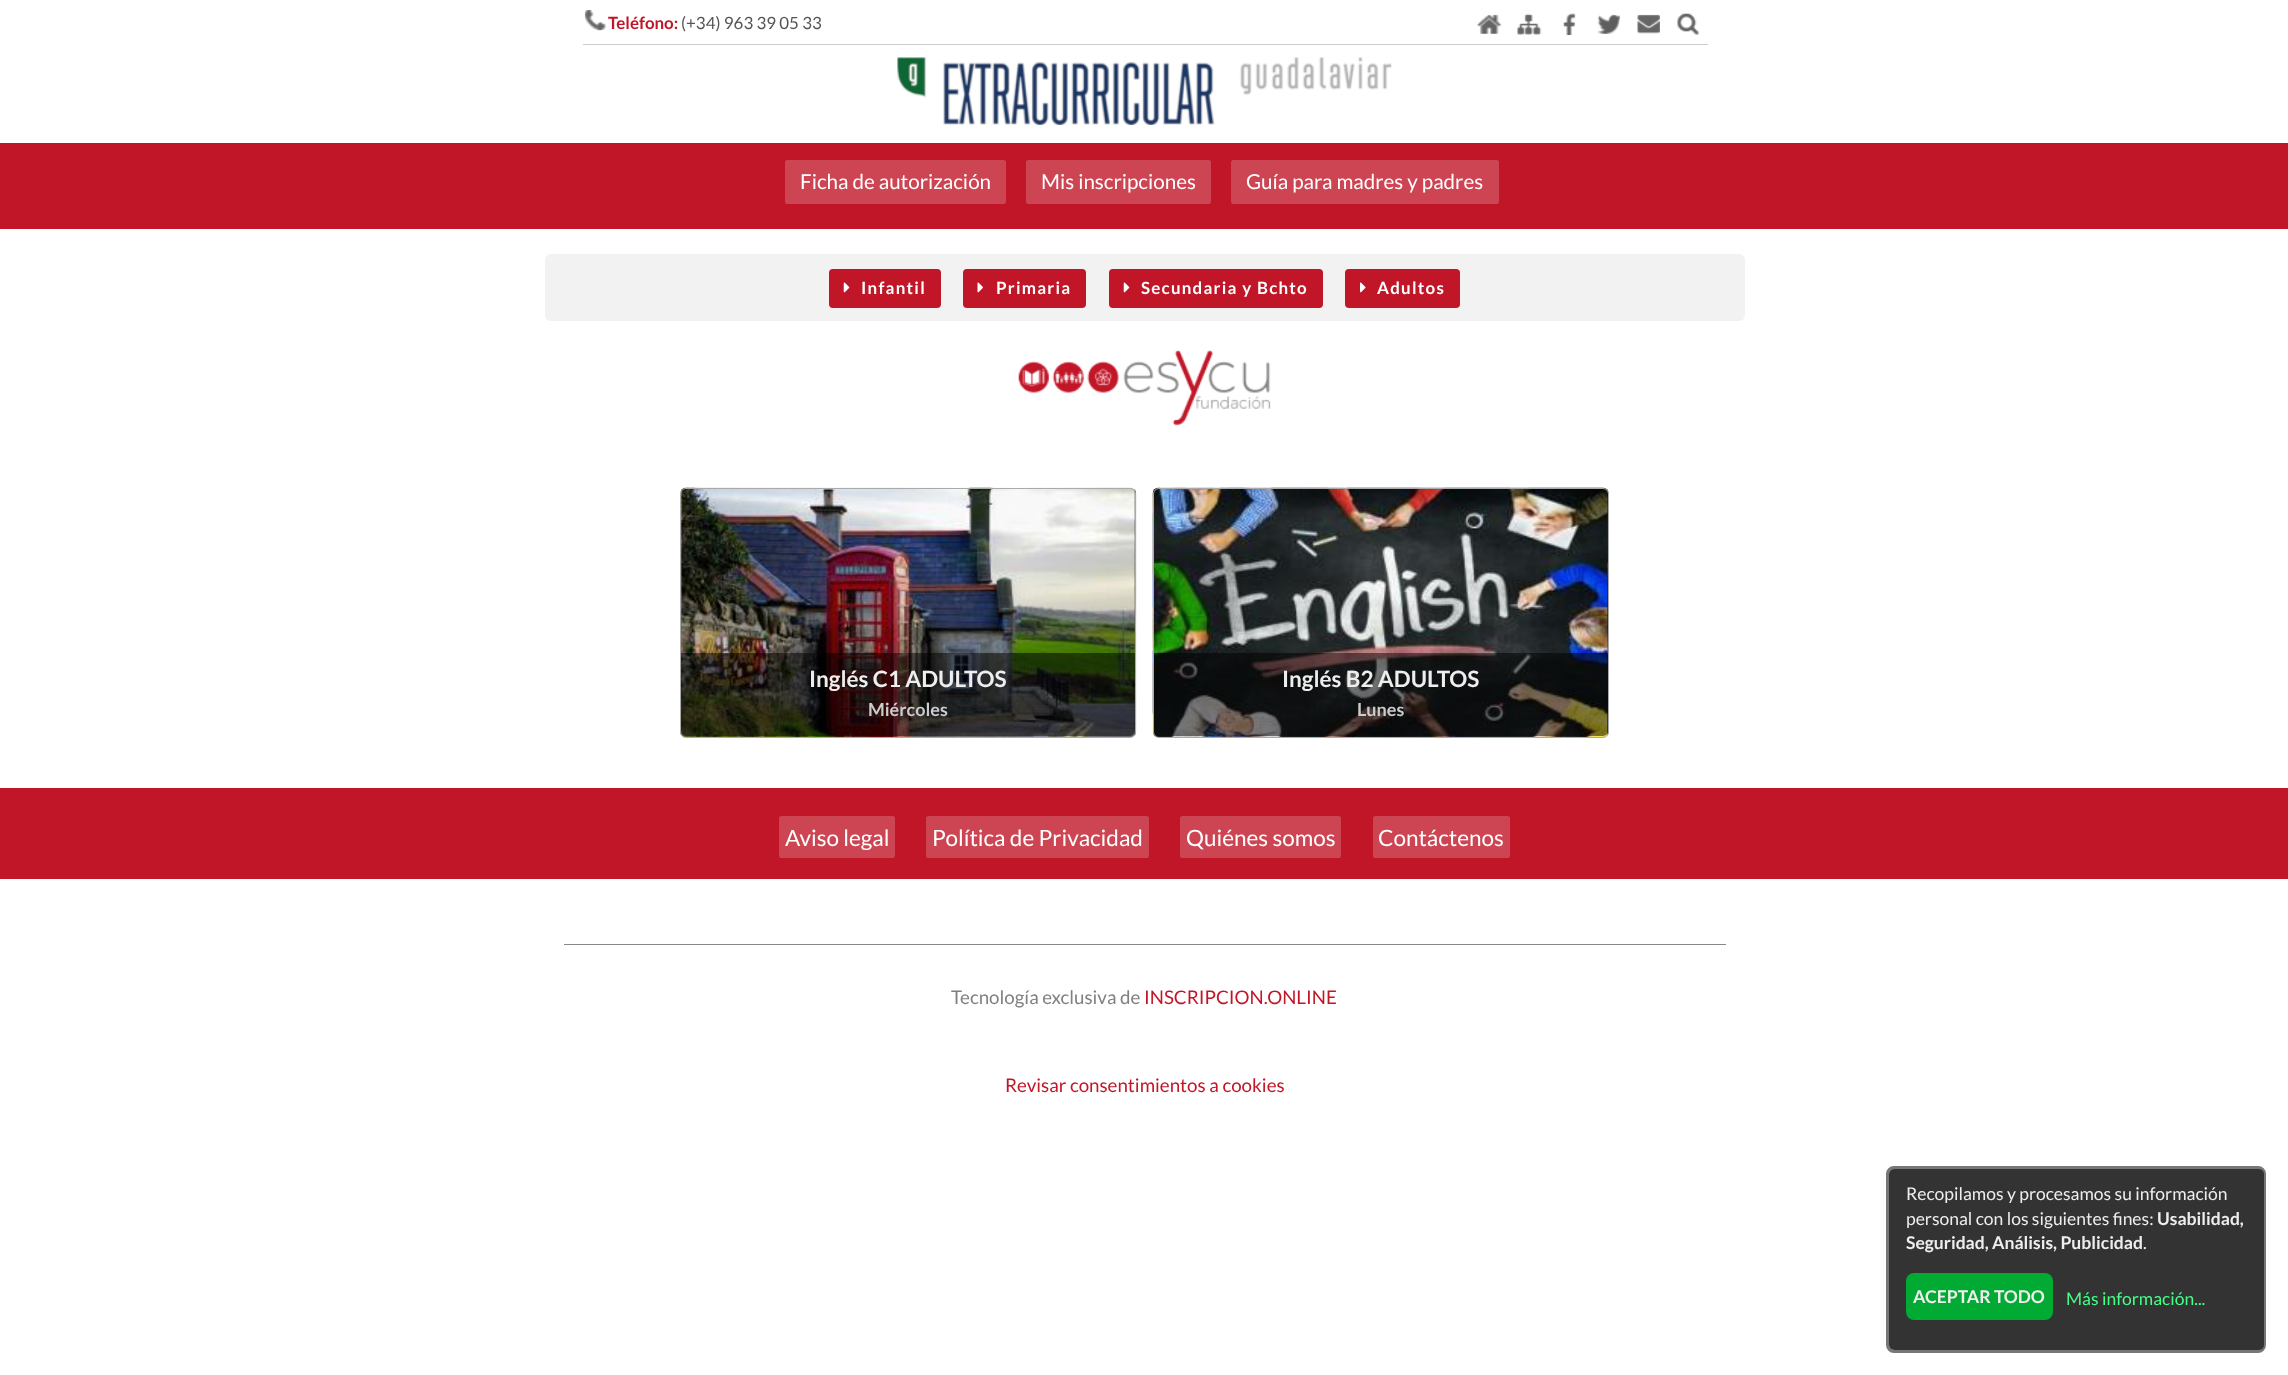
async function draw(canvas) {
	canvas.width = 2288;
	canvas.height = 1375;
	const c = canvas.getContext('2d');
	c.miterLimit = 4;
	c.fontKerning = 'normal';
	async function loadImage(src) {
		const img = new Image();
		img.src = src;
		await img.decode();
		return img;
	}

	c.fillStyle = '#fff';
	c.fillRect(0, 0, 2288, 1375);
	c.drawImage(await loadImage('img1.png'), 584, 10, 23, 21);
	c.font = 'bold 16.9px Lato';
	c.fillStyle = '#c11628';
	c.fillText('Teléfono:', 608, 29);
	c.font = '16.9px Lato';
	c.fillStyle = '#555';
	c.fillText('(+34) 963 39 05 33', 681, 29);
	c.drawImage(await loadImage('img2.png'), 1477, 14, 25, 20);
	c.drawImage(await loadImage('img3.png'), 1517, 13, 25, 22);
	c.drawImage(await loadImage('img4.png'), 1563, 13, 13, 22);
	c.drawImage(await loadImage('img5.png'), 1597, 14, 23, 20);
	c.drawImage(await loadImage('img6.png'), 1637, 14, 23, 20);
	c.drawImage(await loadImage('img7.png'), 1677, 13, 22, 22);
	c.fillStyle = '#ccc';
	c.fillRect(583, 44, 1125, 1);
	c.drawImage(await loadImage('img8.png'), 897, 57, 495, 68);
	c.fillStyle = '#c11628';
	c.fillRect(0, 143, 2288, 86);
	c.fillStyle = '#cd4553';
	c.beginPath();
	c.roundRect(785, 160, 221, 44, 2.5);
	c.fill();
	c.font = '20.6px Lato';
	c.fillStyle = '#fff';
	c.fillText('Ficha de autorización', 800, 189);
	c.fillStyle = '#cd4553';
	c.beginPath();
	c.roundRect(1026, 160, 185, 44, 2.5);
	c.fill();
	c.fillStyle = '#fff';
	c.fillText('Mis inscripciones', 1041, 189);
	c.fillStyle = '#cd4553';
	c.beginPath();
	c.roundRect(1231, 160, 268, 44, 2.5);
	c.fill();
	c.fillStyle = '#fff';
	c.fillText('Guía para madres y padres', 1246, 189);
	c.fillStyle = '#f2f2f2';
	c.beginPath();
	c.roundRect(545, 254, 1200, 67, 6);
	c.fill();
	c.fillStyle = '#c11628';
	c.beginPath();
	c.roundRect(829, 269, 112, 39, 4);
	c.fill();
	c.drawImage(await loadImage('img9.png'), 843, 282, 7, 11);
	c.letterSpacing = '1.25px';
	c.font = 'bold 16.9px Lato';
	c.fillStyle = '#fff';
	c.fillText('Infantil', 861, 294);
	c.fillStyle = '#c11628';
	c.beginPath();
	c.roundRect(963, 269, 123, 39, 4);
	c.fill();
	c.drawImage(await loadImage('img10.png'), 977, 282, 6, 11);
	c.fillStyle = '#fff';
	c.fillText('Primaria', 996, 294);
	c.fillStyle = '#c11628';
	c.beginPath();
	c.roundRect(1109, 269, 214, 39, 4);
	c.fill();
	c.drawImage(await loadImage('img9.png'), 1123, 282, 7, 11);
	c.fillStyle = '#fff';
	c.fillText('Secundaria y Bchto', 1141, 294);
	c.fillStyle = '#c11628';
	c.beginPath();
	c.roundRect(1345, 269, 115, 39, 4);
	c.fill();
	c.drawImage(await loadImage('img11.png'), 1360, 282, 6, 11);
	c.fillStyle = '#fff';
	c.fillText('Adultos', 1377, 294);
	c.drawImage(await loadImage('img12.png'), 1018, 350, 253, 76);
	c.drawImage(await loadImage('img13.png'), 680, 487, 457, 251);
	c.beginPath();
	c.roundRect(680.5, 488.5, 455, 249, 5.5);
	c.strokeStyle = '#aaa';
	c.stroke();
	c.fillStyle = '#00000080';
	c.beginPath();
	c.roundRect(681, 653, 454, 83, [0, 0, 5, 5]);
	c.fill();
	c.letterSpacing = '0px';
	c.font = 'bold 22.5px Lato';
	c.fillStyle = '#eee';
	c.fillText('Inglés C1 ADULTOS', 809, 687);
	c.font = 'bold 18px Lato';
	c.fillStyle = '#ccc';
	c.fillText('Miércoles', 868, 716);
	c.drawImage(await loadImage('img14.png'), 1152, 487, 457, 251);
	c.beginPath();
	c.roundRect(1153.5, 488.5, 455, 249, 5.5);
	c.stroke();
	c.fillStyle = '#00000080';
	c.beginPath();
	c.roundRect(1154, 653, 454, 83, [0, 0, 5, 5]);
	c.fill();
	c.font = 'bold 22.5px Lato';
	c.fillStyle = '#eee';
	c.fillText('Inglés B2 ADULTOS', 1282, 687);
	c.font = 'bold 18px Lato';
	c.fillStyle = '#ccc';
	c.fillText('Lunes', 1357, 716);
	c.fillStyle = '#c11628';
	c.fillRect(0, 788, 2288, 91);
	c.fillStyle = '#cd4553';
	c.beginPath();
	c.roundRect(779, 816, 116, 42, 2.5);
	c.fill();
	c.font = '22.5px Lato';
	c.fillStyle = '#fff';
	c.fillText('Aviso legal', 785, 846);
	c.fillStyle = '#cd4553';
	c.beginPath();
	c.roundRect(926, 816, 223, 42, 2.5);
	c.fill();
	c.fillStyle = '#fff';
	c.fillText('Política de Privacidad', 932, 846);
	c.fillStyle = '#cd4553';
	c.beginPath();
	c.roundRect(1180, 816, 161, 42, 2.5);
	c.fill();
	c.fillStyle = '#fff';
	c.fillText('Quiénes somos', 1186, 846);
	c.fillStyle = '#cd4553';
	c.beginPath();
	c.roundRect(1373, 816, 137, 42, 2.5);
	c.fill();
	c.fillStyle = '#fff';
	c.fillText('Contáctenos', 1378, 846);
	c.fillStyle = '#888';
	c.fillRect(564, 944, 1162, 1);
	c.font = '18.75px Lato';
	c.fillStyle = '#808080';
	c.fillText('Tecnología exclusiva de', 951, 1004);
	c.fillStyle = '#c11628';
	c.fillText('INSCRIPCION.ONLINE', 1144, 1004);
	c.fillText('Revisar consentimientos a cookies', 1005, 1092);
	c.beginPath();
	c.roundRect(1887.5, 1167.5, 377, 184, 6.5);
	c.strokeStyle = '#777';
	c.lineWidth = 3;
	c.stroke();
	c.fillStyle = '#333';
	c.beginPath();
	c.roundRect(1889, 1169, 375, 181, 5);
	c.fill();
	c.font = '17.5px Lato';
	c.fillStyle = '#eee';
	c.fillText('Recopilamos y procesamos su información', 1906, 1200);
	c.fillText('personal con los siguientes fines:', 1906, 1225);
	c.font = 'bold 17.5px Lato';
	c.fillText('Usabilidad,', 2157, 1225);
	c.fillText('Seguridad, Análisis, Publicidad', 1906, 1249);
	c.font = '17.5px Lato';
	c.fillText('.', 2143, 1249);
	c.fillStyle = '#0a3';
	c.beginPath();
	c.roundRect(1906, 1273, 147, 47, 8);
	c.fill();
	c.font = 'bold 17.5px Lato';
	c.fillStyle = '#eee';
	c.fillText('ACEPTAR TODO', 1913, 1303);
	c.font = '17.5px Lato';
	c.fillStyle = '#4f8';
	c.fillText('Más información...', 2066, 1305);
}

draw(document.querySelector('canvas'));
